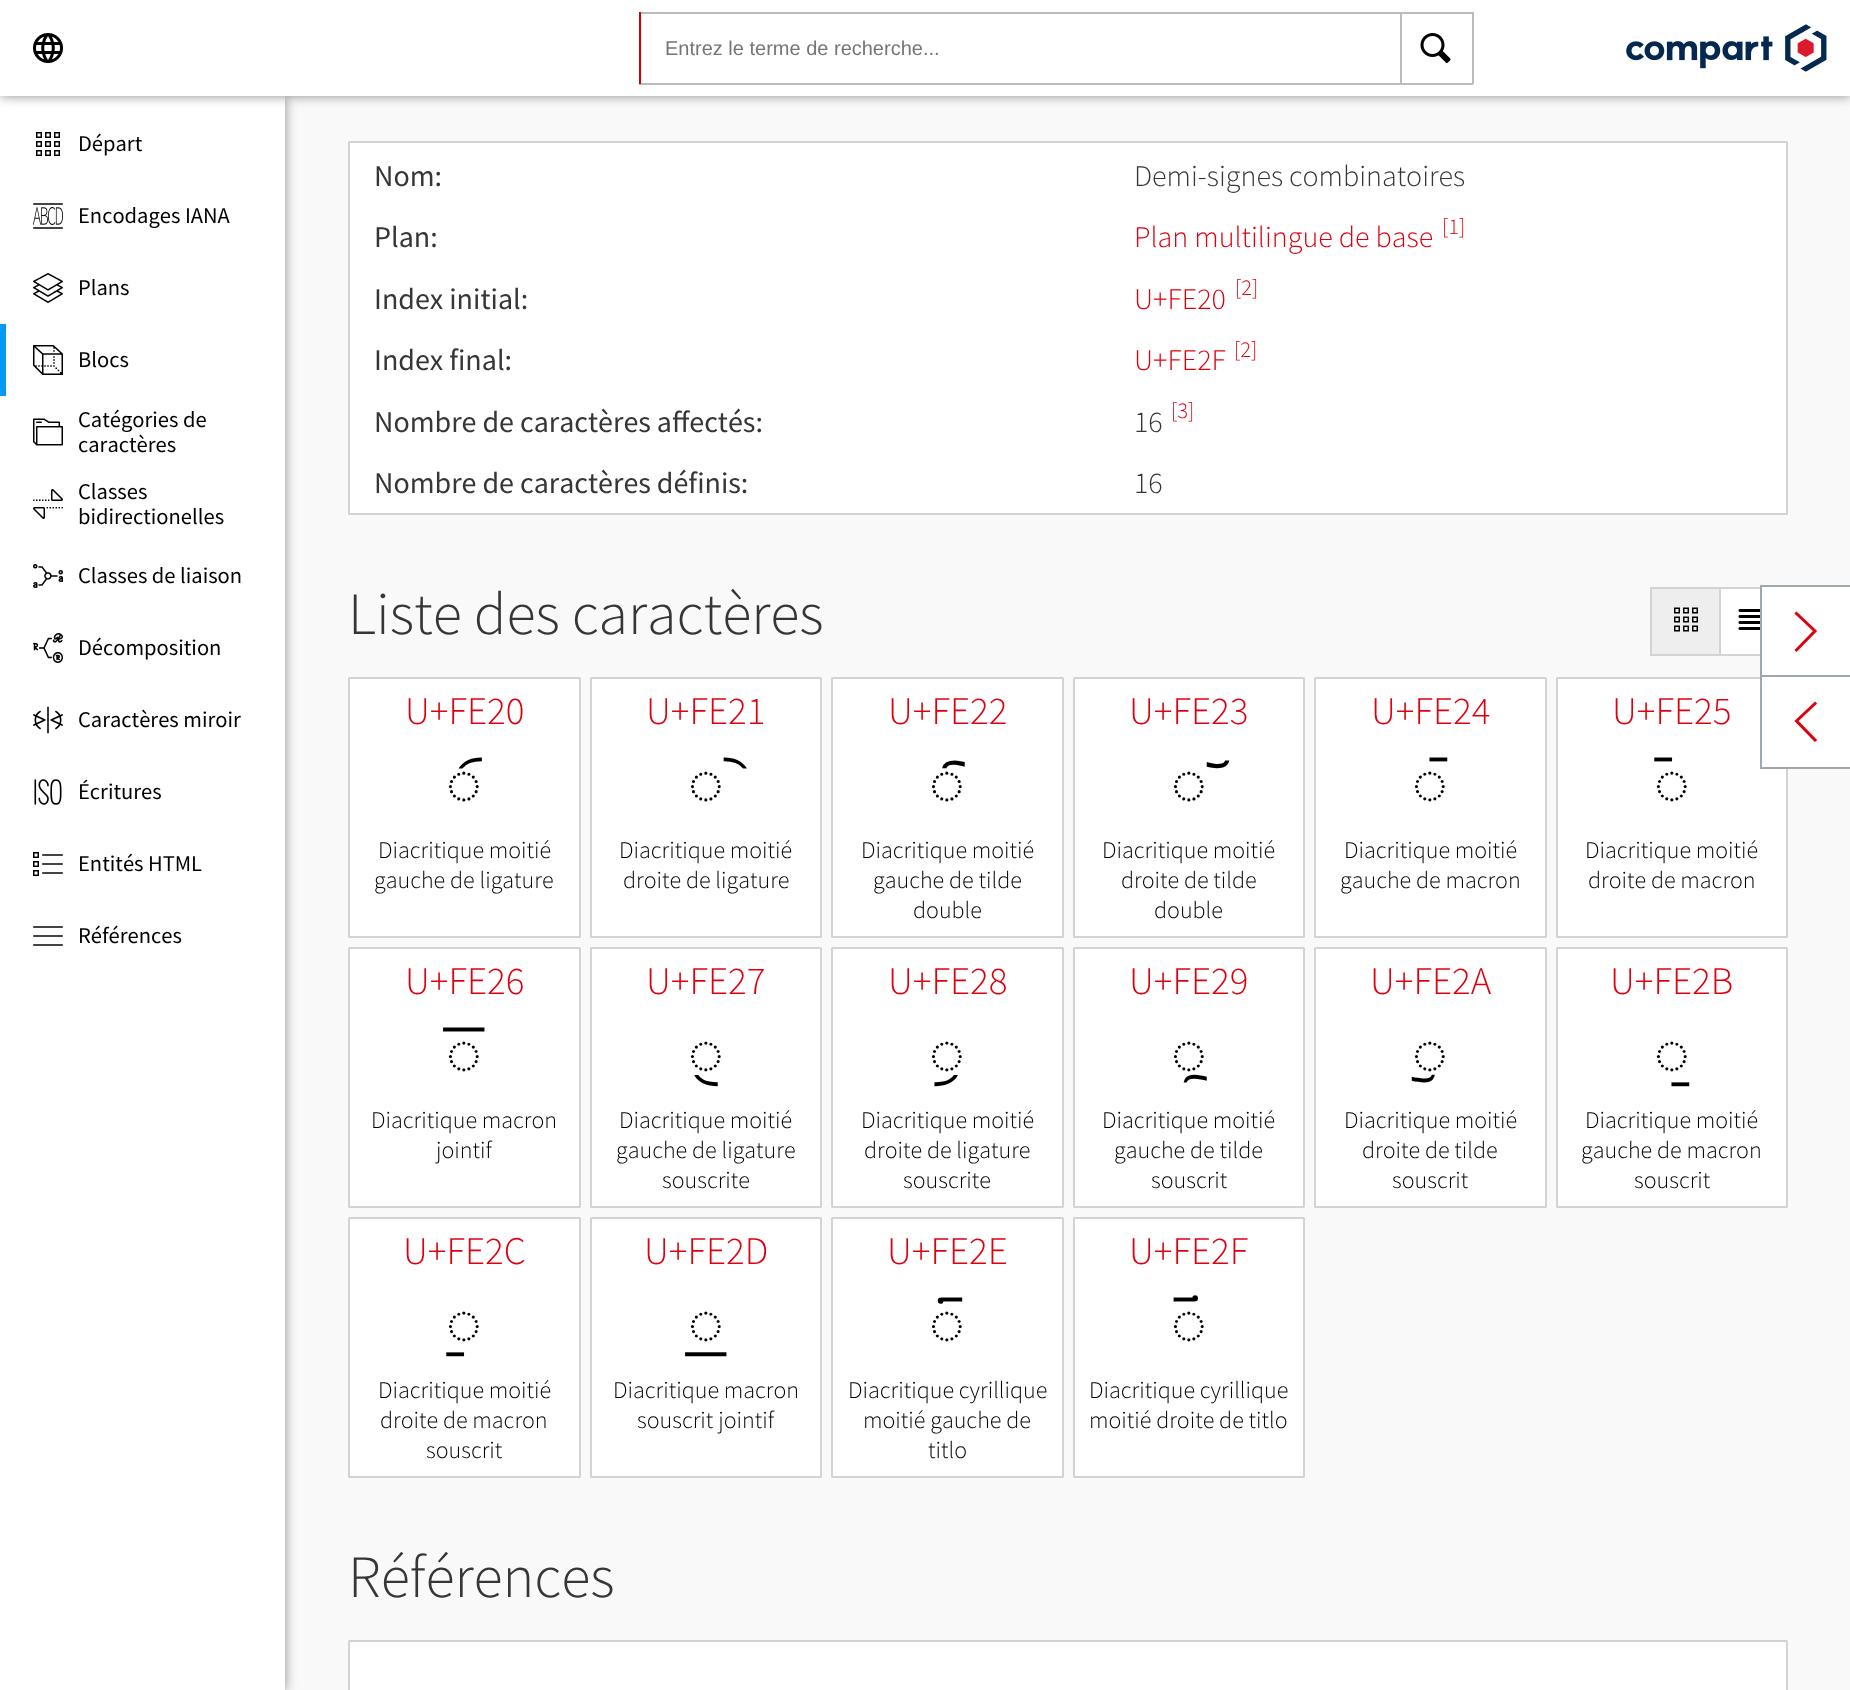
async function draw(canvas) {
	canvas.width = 1850;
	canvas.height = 1690;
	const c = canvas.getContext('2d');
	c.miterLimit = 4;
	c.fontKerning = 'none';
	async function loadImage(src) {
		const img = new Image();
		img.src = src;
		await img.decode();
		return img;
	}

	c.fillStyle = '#f9f9fa';
	c.fillRect(0, 0, 1850, 1690);
	c.fillStyle = '#8c8c8c';
	c.filter = 'blur(6px)';
	c.beginPath();
	c.rect(0, 96, 285, 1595);
	c.fill();
	c.filter = 'none';
	c.fillStyle = '#fff';
	c.fillRect(0, 96, 285, 1594);
	c.fillStyle = '#8c8c8c';
	c.filter = 'blur(6px)';
	c.beginPath();
	c.rect(0, 0, 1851, 96);
	c.fill();
	c.filter = 'none';
	c.fillStyle = '#fff';
	c.fillRect(0, 0, 1850, 96);
	c.drawImage(await loadImage('img1.png'), 33, 33, 30, 30);
	for (const [x, y, w, h, color] of [
		[639, 12, 834, 2, '#bcbcbc'],
		[1472, 12, 2, 72, '#bcbcbc'],
		[1401, 83, 72, 2, '#bcbcbc'],
	]) {
		c.fillStyle = color;
		c.fillRect(x, y, w, h);
	}
	c.drawImage(await loadImage('img2.png'), 1420, 33, 31, 30);
	for (const [x, y, w, h, color] of [
		[1400, 12, 2, 72, '#bcbcbc'],
		[639, 83, 762, 2, '#bcbcbc'],
		[639, 12, 2, 72, '#c00'],
	]) {
		c.fillStyle = color;
		c.fillRect(x, y, w, h);
	}
	c.font = '20px Liberation Sans';
	c.fillStyle = '#757575';
	c.fillText('Entrez le terme de recherche...', 665, 55);
	c.drawImage(await loadImage('img3.png'), 1626, 24, 201, 48);
	c.drawImage(await loadImage('img4.png'), 36, 132, 24, 24);
	c.font = '22.5px Source Sans Pro';
	c.fillStyle = '#000';
	c.fillText('Départ', 78, 151);
	c.drawImage(await loadImage('img5.png'), 33, 203, 30, 26);
	c.fillText('Encodages IANA', 78, 223);
	c.drawImage(await loadImage('img6.png'), 33, 273, 30, 30);
	c.fillText('Plans', 78, 295);
	c.fillStyle = '#0399f7';
	c.fillRect(0, 324, 6, 72);
	c.drawImage(await loadImage('img7.png'), 33, 345, 30, 30);
	c.fillStyle = '#000';
	c.fillText('Blocs', 78, 367);
	c.drawImage(await loadImage('img8.png'), 33, 418, 30, 28);
	c.fillText('Catégories de', 78, 427);
	c.fillText('caractères', 78, 452);
	c.drawImage(await loadImage('img9.png'), 33, 489, 30, 30);
	c.fillText('Classes', 78, 499);
	c.fillText('bidirectionelles', 78, 524);
	c.drawImage(await loadImage('img10.png'), 33, 564, 30, 24);
	c.fillText('Classes de liaison', 78, 583);
	c.drawImage(await loadImage('img11.png'), 33, 633, 30, 30);
	c.fillText('Décomposition', 78, 655);
	c.drawImage(await loadImage('img12.png'), 33, 706, 30, 28);
	c.fillText('Caractères miroir', 78, 727);
	c.drawImage(await loadImage('img13.png'), 34, 779, 28, 26);
	c.fillText('Écritures', 78, 799);
	c.drawImage(await loadImage('img14.png'), 33, 852, 30, 24);
	c.fillText('Entités HTML', 78, 871);
	c.drawImage(await loadImage('img15.png'), 33, 926, 30, 20);
	c.fillText('Références', 78, 943);
	c.fillStyle = '#fff';
	c.beginPath();
	c.roundRect(349, 142, 1438, 372, 0.5);
	c.fill();
	c.strokeStyle = '#d3d3d3';
	c.lineWidth = 2;
	c.stroke();
	c.font = '30px Source Sans Pro';
	c.fillStyle = '#373637';
	c.fillText('Nom:', 374, 186);
	c.font = '300 30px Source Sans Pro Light';
	c.fillText('Demi-signes combinatoires', 1134, 186);
	c.font = '30px Source Sans Pro';
	c.fillText('Plan:', 374, 247);
	c.font = '300 30px Source Sans Pro Light';
	c.fillStyle = '#df000f';
	c.fillText('Plan multilingue de base', 1134, 247);
	c.font = '300 22.5px Source Sans Pro Light';
	c.fillText('[1]', 1442, 234);
	c.font = '30px Source Sans Pro';
	c.fillStyle = '#373637';
	c.fillText('Index initial:', 374, 309);
	c.font = '300 30px Source Sans Pro Light';
	c.fillStyle = '#df000f';
	c.fillText('U+FE20', 1134, 309);
	c.font = '300 22.5px Source Sans Pro Light';
	c.fillText('[2]', 1235, 295);
	c.font = '30px Source Sans Pro';
	c.fillStyle = '#373637';
	c.fillText('Index final:', 374, 370);
	c.font = '300 30px Source Sans Pro Light';
	c.fillStyle = '#df000f';
	c.fillText('U+FE2F', 1134, 370);
	c.font = '300 22.5px Source Sans Pro Light';
	c.fillText('[2]', 1234, 357);
	c.font = '30px Source Sans Pro';
	c.fillStyle = '#373637';
	c.fillText('Nombre de caractères affectés:', 374, 432);
	c.font = '300 30px Source Sans Pro Light';
	c.fillText('16', 1134, 432);
	c.font = '300 22.5px Source Sans Pro Light';
	c.fillStyle = '#df000f';
	c.fillText('[3]', 1171, 418);
	c.font = '30px Source Sans Pro';
	c.fillStyle = '#373637';
	c.fillText('Nombre de caractères définis:', 374, 493);
	c.font = '300 30px Source Sans Pro Light';
	c.fillText('16', 1134, 493);
	c.font = '300 60px Source Sans Pro Light';
	c.fillText('Liste des caractères', 348, 634);
	for (const [x, y, w, h, color] of [
		[1652, 589, 67, 65, '#eee'],
		[1650, 587, 69, 2, '#d3d3d3'],
		[1650, 654, 69, 2, '#d3d3d3'],
		[1650, 587, 2, 69, '#d3d3d3'],
	]) {
		c.fillStyle = color;
		c.fillRect(x, y, w, h);
	}
	c.drawImage(await loadImage('img16.png'), 1674, 607, 24, 25);
	c.fillStyle = '#fff';
	c.fillRect(1721, 589, 39, 65);
	c.strokeRect(1720, 588, 67, 67);
	c.drawImage(await loadImage('img17.png'), 1738, 609, 22, 21);
	c.beginPath();
	c.roundRect(349, 678, 231, 259, 0.5);
	c.fill();
	c.stroke();
	c.font = '300 39px Source Sans Pro Light';
	c.fillStyle = '#df000f';
	c.fillText('U+FE20', 405, 724);
	c.font = '60px Liberation Sans';
	c.fillStyle = '#000';
	c.fillText('◌︠', 446, 804);
	c.font = '300 24px Source Sans Pro Light';
	c.fillText('Diacritique moitié', 378, 858);
	c.fillText('gauche de ligature', 374, 888);
	c.fillStyle = '#fff';
	c.beginPath();
	c.roundRect(591, 678, 230, 259, 0.5);
	c.fill();
	c.stroke();
	c.font = '300 39px Source Sans Pro Light';
	c.fillStyle = '#df000f';
	c.fillText('U+FE21', 646, 724);
	c.font = '60px Liberation Sans';
	c.fillStyle = '#000';
	c.fillText('◌︡', 688, 804);
	c.font = '300 24px Source Sans Pro Light';
	c.fillText('Diacritique moitié', 619, 858);
	c.fillText('droite de ligature', 623, 888);
	c.fillStyle = '#fff';
	c.beginPath();
	c.roundRect(832, 678, 231, 259, 0.5);
	c.fill();
	c.stroke();
	c.font = '300 39px Source Sans Pro Light';
	c.fillStyle = '#df000f';
	c.fillText('U+FE22', 888, 724);
	c.font = '60px Liberation Sans';
	c.fillStyle = '#000';
	c.fillText('◌︢', 929, 804);
	c.font = '300 24px Source Sans Pro Light';
	for (const [text, x, y] of [
		['Diacritique moitié', 861, 858],
		['gauche de tilde', 873, 888],
		['double', 913, 918],
	]) {
		c.fillText(text, x, y);
	}
	c.fillStyle = '#fff';
	c.beginPath();
	c.roundRect(1074, 678, 230, 259, 0.5);
	c.fill();
	c.stroke();
	c.font = '300 39px Source Sans Pro Light';
	c.fillStyle = '#df000f';
	c.fillText('U+FE23', 1129, 724);
	c.font = '60px Liberation Sans';
	c.fillStyle = '#000';
	c.fillText('◌︣', 1171, 804);
	c.font = '300 24px Source Sans Pro Light';
	for (const [text, x, y] of [
		['Diacritique moitié', 1102, 858],
		['droite de tilde', 1121, 888],
		['double', 1154, 918],
	]) {
		c.fillText(text, x, y);
	}
	c.fillStyle = '#fff';
	c.beginPath();
	c.roundRect(1315, 678, 231, 259, 0.5);
	c.fill();
	c.stroke();
	c.font = '300 39px Source Sans Pro Light';
	c.fillStyle = '#df000f';
	c.fillText('U+FE24', 1371, 724);
	c.font = '60px Noto Sans';
	c.fillStyle = '#000';
	c.fillText('◌︤', 1412, 804);
	c.font = '300 24px Source Sans Pro Light';
	c.fillText('Diacritique moitié', 1344, 858);
	c.fillText('gauche de macron', 1340, 888);
	c.fillStyle = '#fff';
	c.beginPath();
	c.roundRect(1557, 678, 230, 259, 0.5);
	c.fill();
	c.stroke();
	c.font = '300 39px Source Sans Pro Light';
	c.fillStyle = '#df000f';
	c.fillText('U+FE25', 1612, 724);
	c.font = '60px Noto Sans';
	c.fillStyle = '#000';
	c.fillText('◌︥', 1654, 804);
	c.font = '300 24px Source Sans Pro Light';
	c.fillText('Diacritique moitié', 1585, 858);
	c.fillText('droite de macron', 1588, 888);
	c.fillStyle = '#fff';
	c.beginPath();
	c.roundRect(349, 948, 231, 259, 0.5);
	c.fill();
	c.stroke();
	c.font = '300 39px Source Sans Pro Light';
	c.fillStyle = '#df000f';
	c.fillText('U+FE26', 405, 994);
	c.font = '60px Noto Sans';
	c.fillStyle = '#000';
	c.fillText('◌︦', 446, 1074);
	c.font = '300 24px Source Sans Pro Light';
	c.fillText('Diacritique macron', 371, 1128);
	c.fillText('jointif', 436, 1158);
	c.fillStyle = '#fff';
	c.beginPath();
	c.roundRect(591, 948, 230, 259, 0.5);
	c.fill();
	c.stroke();
	c.font = '300 39px Source Sans Pro Light';
	c.fillStyle = '#df000f';
	c.fillText('U+FE27', 646, 994);
	c.font = '60px Noto Sans';
	c.fillStyle = '#000';
	c.fillText('◌︧', 688, 1074);
	c.font = '300 24px Source Sans Pro Light';
	for (const [text, x, y] of [
		['Diacritique moitié', 619, 1128],
		['gauche de ligature', 616, 1158],
		['souscrite', 662, 1188],
	]) {
		c.fillText(text, x, y);
	}
	c.fillStyle = '#fff';
	c.beginPath();
	c.roundRect(832, 948, 231, 259, 0.5);
	c.fill();
	c.stroke();
	c.font = '300 39px Source Sans Pro Light';
	c.fillStyle = '#df000f';
	c.fillText('U+FE28', 888, 994);
	c.font = '60px Noto Sans';
	c.fillStyle = '#000';
	c.fillText('◌︨', 929, 1074);
	c.font = '300 24px Source Sans Pro Light';
	for (const [text, x, y] of [
		['Diacritique moitié', 861, 1128],
		['droite de ligature', 864, 1158],
		['souscrite', 903, 1188],
	]) {
		c.fillText(text, x, y);
	}
	c.fillStyle = '#fff';
	c.beginPath();
	c.roundRect(1074, 948, 230, 259, 0.5);
	c.fill();
	c.stroke();
	c.font = '300 39px Source Sans Pro Light';
	c.fillStyle = '#df000f';
	c.fillText('U+FE29', 1129, 994);
	c.font = '60px Noto Sans';
	c.fillStyle = '#000';
	c.fillText('◌︩', 1171, 1074);
	c.font = '300 24px Source Sans Pro Light';
	for (const [text, x, y] of [
		['Diacritique moitié', 1102, 1128],
		['gauche de tilde', 1114, 1158],
		['souscrit', 1151, 1188],
	]) {
		c.fillText(text, x, y);
	}
	c.fillStyle = '#fff';
	c.beginPath();
	c.roundRect(1315, 948, 231, 259, 0.5);
	c.fill();
	c.stroke();
	c.font = '300 39px Source Sans Pro Light';
	c.fillStyle = '#df000f';
	c.fillText('U+FE2A', 1370, 994);
	c.font = '60px Noto Sans';
	c.fillStyle = '#000';
	c.fillText('◌︪', 1412, 1074);
	c.font = '300 24px Source Sans Pro Light';
	for (const [text, x, y] of [
		['Diacritique moitié', 1344, 1128],
		['droite de tilde', 1362, 1158],
		['souscrit', 1392, 1188],
	]) {
		c.fillText(text, x, y);
	}
	c.fillStyle = '#fff';
	c.beginPath();
	c.roundRect(1557, 948, 230, 259, 0.5);
	c.fill();
	c.stroke();
	c.font = '300 39px Source Sans Pro Light';
	c.fillStyle = '#df000f';
	c.fillText('U+FE2B', 1610, 994);
	c.font = '60px Noto Sans';
	c.fillStyle = '#000';
	c.fillText('◌︫', 1654, 1074);
	c.font = '300 24px Source Sans Pro Light';
	for (const [text, x, y] of [
		['Diacritique moitié', 1585, 1128],
		['gauche de macron', 1581, 1158],
		['souscrit', 1634, 1188],
	]) {
		c.fillText(text, x, y);
	}
	c.fillStyle = '#fff';
	c.beginPath();
	c.roundRect(349, 1218, 231, 259, 0.5);
	c.fill();
	c.stroke();
	c.font = '300 39px Source Sans Pro Light';
	c.fillStyle = '#df000f';
	c.fillText('U+FE2C', 403, 1264);
	c.font = '60px Noto Sans';
	c.fillStyle = '#000';
	c.fillText('◌︬', 446, 1344);
	c.font = '300 24px Source Sans Pro Light';
	for (const [text, x, y] of [
		['Diacritique moitié', 378, 1398],
		['droite de macron', 380, 1428],
		['souscrit', 426, 1458],
	]) {
		c.fillText(text, x, y);
	}
	c.fillStyle = '#fff';
	c.beginPath();
	c.roundRect(591, 1218, 230, 259, 0.5);
	c.fill();
	c.stroke();
	c.font = '300 39px Source Sans Pro Light';
	c.fillStyle = '#df000f';
	c.fillText('U+FE2D', 644, 1264);
	c.font = '60px Noto Sans';
	c.fillStyle = '#000';
	c.fillText('◌︭', 688, 1344);
	c.font = '300 24px Source Sans Pro Light';
	c.fillText('Diacritique macron', 613, 1398);
	c.fillText('souscrit jointif', 637, 1428);
	c.fillStyle = '#fff';
	c.beginPath();
	c.roundRect(832, 1218, 231, 259, 0.5);
	c.fill();
	c.stroke();
	c.font = '300 39px Source Sans Pro Light';
	c.fillStyle = '#df000f';
	c.fillText('U+FE2E', 887, 1264);
	c.font = '60px Noto Sans';
	c.fillStyle = '#000';
	c.fillText('◌︮', 929, 1344);
	c.font = '300 24px Source Sans Pro Light';
	for (const [text, x, y] of [
		['Diacritique cyrillique', 848, 1398],
		['moitié gauche de', 863, 1428],
		['titlo', 928, 1458],
	]) {
		c.fillText(text, x, y);
	}
	c.fillStyle = '#fff';
	c.beginPath();
	c.roundRect(1074, 1218, 230, 259, 0.5);
	c.fill();
	c.stroke();
	c.font = '300 39px Source Sans Pro Light';
	c.fillStyle = '#df000f';
	c.fillText('U+FE2F', 1129, 1264);
	c.font = '60px Noto Sans';
	c.fillStyle = '#000';
	c.fillText('◌︯', 1171, 1344);
	c.font = '300 24px Source Sans Pro Light';
	c.fillText('Diacritique cyrillique', 1089, 1398);
	c.fillText('moitié droite de titlo', 1089, 1428);
	c.font = '300 60px Source Sans Pro Light';
	c.fillStyle = '#373637';
	c.fillText('Références', 348, 1597);
	c.fillStyle = '#fff';
	c.beginPath();
	c.roundRect(349, 1641, 1438, 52, 0.5);
	c.fill();
	c.stroke();
	c.fillRect(1762, 587, 88, 88);
	c.beginPath();
	c.moveTo(1796.5, 650);
	c.lineTo(1815, 631);
	c.lineTo(1796.5, 613.5);
	c.strokeStyle = '#df000f';
	c.lineWidth = 3;
	c.lineCap = 'square';
	c.stroke();
	for (const [x, y, w, h, color] of [
		[1760, 585, 90, 2, '#a0a8af'],
		[1760, 585, 2, 92, '#a0a8af'],
		[1762, 677, 88, 90, '#fff'],
	]) {
		c.fillStyle = color;
		c.fillRect(x, y, w, h);
	}
	c.beginPath();
	c.moveTo(1815, 740);
	c.lineTo(1796.5, 721);
	c.lineTo(1815, 703.5);
	c.stroke();
	for (const [x, y, w, h, color] of [
		[1760, 675, 90, 2, '#a0a8af'],
		[1760, 767, 90, 2, '#a0a8af'],
		[1760, 675, 2, 93, '#a0a8af'],
	]) {
		c.fillStyle = color;
		c.fillRect(x, y, w, h);
	}
}

draw(document.querySelector('canvas'));
